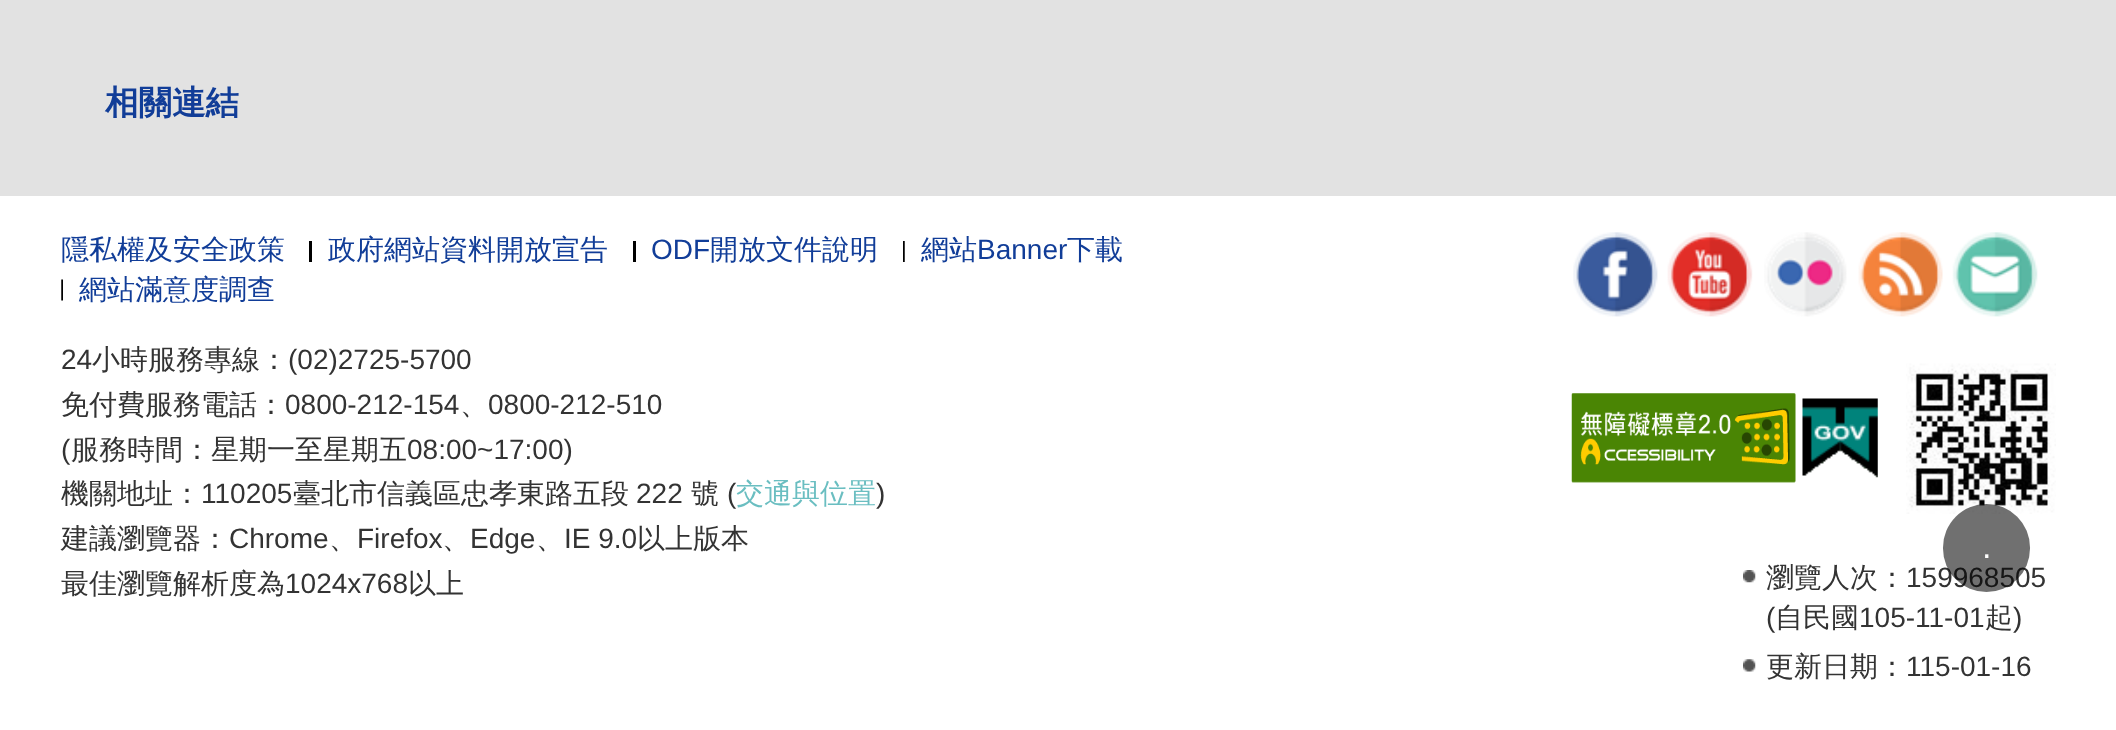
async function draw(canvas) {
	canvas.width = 2116;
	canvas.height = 730;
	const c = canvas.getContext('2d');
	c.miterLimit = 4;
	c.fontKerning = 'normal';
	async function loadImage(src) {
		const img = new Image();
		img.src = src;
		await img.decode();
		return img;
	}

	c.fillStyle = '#fff';
	c.fillRect(0, 0, 2116, 730);
	c.fillStyle = '#e2e2e2';
	c.fillRect(0, 0, 2116, 196);
	c.font = 'bold 33.5px WenQuanYi Zen Hei';
	c.fillStyle = '#113d98';
	c.fillText('相關連結', 105, 114);
	c.font = '500 28px WenQuanYi Zen Hei';
	c.fillText('隱私權及安全政策', 61, 259);
	c.fillStyle = '#000';
	c.fillRect(309, 241, 3, 21);
	c.fillStyle = '#113d98';
	c.fillText('政府網站資料開放宣告', 328, 259);
	c.fillStyle = '#000';
	c.fillRect(633, 241, 3, 21);
	c.font = '28px Liberation Sans';
	c.fillStyle = '#113d98';
	c.fillText('ODF', 651, 259);
	c.font = '500 28px WenQuanYi Zen Hei';
	c.fillText('開放文件說明', 710, 259);
	c.drawImage(await loadImage('img1.png'), 903, 241, 2, 21);
	c.fillText('網站', 921, 259);
	c.font = '28px Liberation Sans';
	c.fillText('Banner', 977, 259);
	c.font = '500 28px WenQuanYi Zen Hei';
	c.fillText('下載', 1067, 259);
	c.drawImage(await loadImage('img2.png'), 61, 279, 2, 22);
	c.fillText('網站滿意度調查', 79, 299);
	c.font = '28px Liberation Sans';
	c.fillStyle = '#333';
	c.fillText('24', 61, 369);
	c.font = '500 28px WenQuanYi Zen Hei';
	c.fillText('小時服務專線：', 92, 369);
	c.font = '28px Liberation Sans';
	c.fillText('(02)2725-5700', 288, 369);
	c.font = '500 28px WenQuanYi Zen Hei';
	c.fillText('免付費服務電話：', 61, 414);
	c.font = '28px Liberation Sans';
	c.fillText('0800-212-154', 285, 414);
	c.font = '500 28px WenQuanYi Zen Hei';
	c.fillText('、', 460, 414);
	c.font = '28px Liberation Sans';
	c.fillText('0800-212-510', 488, 414);
	c.fillText('(', 61, 459);
	c.font = '500 28px WenQuanYi Zen Hei';
	c.fillText('服務時間：星期一至星期五', 71, 459);
	c.font = '28px Liberation Sans';
	c.fillText('08:00~17:00)', 407, 459);
	c.font = '500 28px WenQuanYi Zen Hei';
	c.fillText('機關地址：', 61, 503);
	c.font = '28px Liberation Sans';
	c.fillText('110205', 201, 503);
	c.font = '500 28px WenQuanYi Zen Hei';
	c.fillText('臺北市信義區忠孝東路五段', 293, 503);
	c.font = '28px Liberation Sans';
	c.fillText('222', 636, 503);
	c.font = '500 28px WenQuanYi Zen Hei';
	c.fillText('號', 691, 503);
	c.font = '28px Liberation Sans';
	c.fillText('(', 727, 503);
	c.font = '500 28px WenQuanYi Zen Hei';
	c.fillStyle = '#6abec1';
	c.fillText('交通與位置', 736, 503);
	c.font = '28px Liberation Sans';
	c.fillStyle = '#333';
	c.fillText(')', 876, 503);
	c.font = '500 28px WenQuanYi Zen Hei';
	c.fillText('建議瀏覽器：', 61, 548);
	c.font = '28px Liberation Sans';
	c.fillText('Chrome', 229, 548);
	c.font = '500 28px WenQuanYi Zen Hei';
	c.fillText('、', 329, 548);
	c.font = '28px Liberation Sans';
	c.fillText('Firefox', 357, 548);
	c.font = '500 28px WenQuanYi Zen Hei';
	c.fillText('、', 442, 548);
	c.font = '28px Liberation Sans';
	c.fillText('Edge', 470, 548);
	c.font = '500 28px WenQuanYi Zen Hei';
	c.fillText('、', 536, 548);
	c.font = '28px Liberation Sans';
	c.fillText('IE 9.0', 564, 548);
	c.font = '500 28px WenQuanYi Zen Hei';
	c.fillText('以上版本', 637, 548);
	c.fillText('最佳瀏覽解析度為', 61, 593);
	c.font = '28px Liberation Sans';
	c.fillText('1024x768', 285, 593);
	c.font = '500 28px WenQuanYi Zen Hei';
	c.fillText('以上', 408, 593);
	c.drawImage(await loadImage('img3.png'), 1573, 232, 85, 85);
	c.drawImage(await loadImage('img4.png'), 1667, 232, 86, 85);
	c.drawImage(await loadImage('img5.png'), 1764, 232, 83, 85);
	c.drawImage(await loadImage('img6.png'), 1858, 232, 85, 85);
	c.drawImage(await loadImage('img7.png'), 1952, 232, 86, 85);
	c.drawImage(await loadImage('img8.png'), 1571, 393, 225, 90);
	c.drawImage(await loadImage('img9.png'), 1802, 398, 76, 80);
	c.drawImage(await loadImage('img10.png'), 1906, 363, 150, 151);
	c.drawImage(await loadImage('img11.png'), 1743, 570, 13, 13);
	c.fillText('瀏覽人次：', 1766, 587);
	c.font = '28px Liberation Sans';
	c.fillText('159968505', 1906, 587);
	c.fillText('(', 1766, 627);
	c.font = '500 28px WenQuanYi Zen Hei';
	c.fillText('自民國', 1775, 627);
	c.font = '28px Liberation Sans';
	c.fillText('105-11-01', 1859, 627);
	c.font = '500 28px WenQuanYi Zen Hei';
	c.fillText('起', 1985, 627);
	c.font = '28px Liberation Sans';
	c.fillText(')', 2013, 627);
	c.drawImage(await loadImage('img12.png'), 1743, 659, 13, 13);
	c.font = '500 28px WenQuanYi Zen Hei';
	c.fillText('更新日期：', 1766, 676);
	c.font = '28px Liberation Sans';
	c.fillText('115-01-16', 1906, 676);
	c.fillStyle = '#0000008f';
	c.beginPath();
	c.roundRect(1943, 504, 87, 88, 43.5);
	c.fill();
	c.font = '34px Liberation Sans';
	c.fillStyle = '#fff';
	c.fillText('.', 1982, 558);
}

draw(document.querySelector('canvas'));
